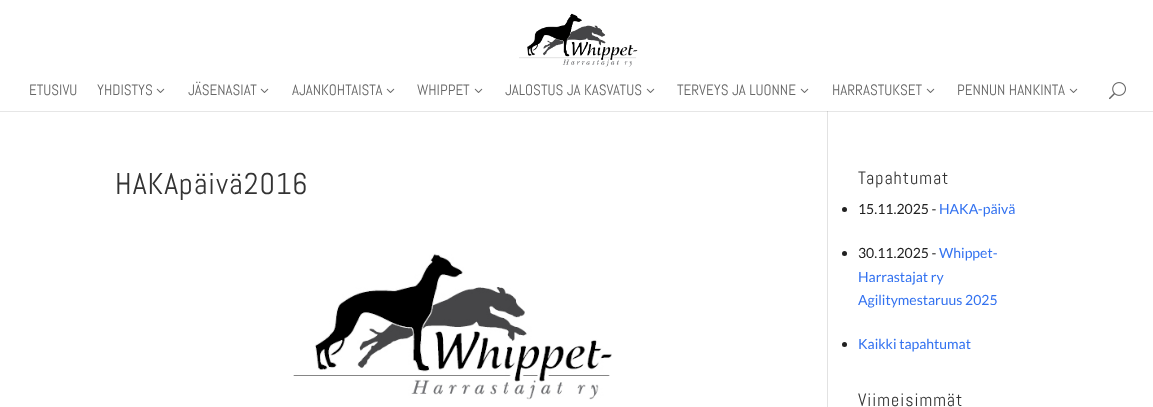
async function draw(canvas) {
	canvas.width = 1153;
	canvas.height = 407;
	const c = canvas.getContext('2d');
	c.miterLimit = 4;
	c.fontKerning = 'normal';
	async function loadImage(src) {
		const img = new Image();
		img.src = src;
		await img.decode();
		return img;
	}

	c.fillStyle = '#fff';
	c.fillRect(0, 0, 1153, 407);
	c.fillStyle = '#e6e6e6';
	c.fillRect(0, 111, 1153, 1);
	c.drawImage(await loadImage('img1.png'), 519, 13, 119, 54);
	c.font = '15px Abel';
	c.fillStyle = '#666';
	c.fillText('ETUSIVU', 29, 95);
	c.fillText('YHDISTYS', 97, 95);
	c.drawImage(await loadImage('img2.png'), 156, 88, 9, 5);
	c.fillText('JÄSENASIAT', 188, 95);
	c.drawImage(await loadImage('img2.png'), 260, 88, 9, 5);
	c.fillText('AJANKOHTAISTA', 292, 95);
	c.drawImage(await loadImage('img2.png'), 386, 88, 9, 5);
	c.fillText('WHIPPET', 417, 95);
	c.drawImage(await loadImage('img2.png'), 474, 88, 9, 5);
	c.fillText('JALOSTUS JA KASVATUS', 505, 95);
	c.drawImage(await loadImage('img2.png'), 646, 88, 9, 5);
	c.fillText('TERVEYS JA LUONNE', 677, 95);
	c.drawImage(await loadImage('img2.png'), 800, 88, 9, 5);
	c.fillText('HARRASTUKSET', 832, 95);
	c.drawImage(await loadImage('img2.png'), 926, 88, 9, 5);
	c.fillText('PENNUN HANKINTA', 957, 95);
	c.drawImage(await loadImage('img2.png'), 1069, 88, 9, 5);
	c.drawImage(await loadImage('img3.png'), 1109, 82, 17, 18);
	c.fillStyle = '#e2e2e2';
	c.fillRect(827, 111, 1, 296);
	c.fillStyle = '#cbcbcb';
	c.fillRect(827, 111, 1, 1);
	c.letterSpacing = '1px';
	c.font = '30px Abel';
	c.fillStyle = '#333';
	c.fillText('HAKApäivä2016', 115, 194);
	c.drawImage(await loadImage('img4.png'), 293, 253, 319, 147);
	c.font = '18px Abel';
	c.fillText('Tapahtumat', 858, 184);
	c.fillStyle = '#212121';
	c.beginPath();
	c.arc(844.5, 209.5, 2.5, 0, 2 * Math.PI);
	c.fill();
	c.letterSpacing = '0px';
	c.font = '14px Lato';
	c.fillText('15.11.2025 -', 858, 214);
	c.fillStyle = '#3372f0';
	c.fillText('HAKA-päivä', 939, 214);
	c.fillStyle = '#212121';
	c.beginPath();
	c.arc(844.5, 253.5, 2.5, 0, 2 * Math.PI);
	c.fill();
	c.fillText('30.11.2025 -', 858, 258);
	c.fillStyle = '#3372f0';
	for (const [text, x, y] of [
		['Whippet-', 939, 258],
		['Harrastajat ry', 858, 282],
		['Agilitymestaruus 2025', 858, 305],
	]) {
		c.fillText(text, x, y);
	}
	c.fillStyle = '#212121';
	c.beginPath();
	c.arc(844.5, 344.5, 2.5, 0, 2 * Math.PI);
	c.fill();
	c.fillStyle = '#3372f0';
	c.fillText('Kaikki tapahtumat', 858, 349);
	c.letterSpacing = '1px';
	c.font = '18px Abel';
	c.fillStyle = '#333';
	c.fillText('Viimeisimmät', 858, 406);
}

draw(document.querySelector('canvas'));
